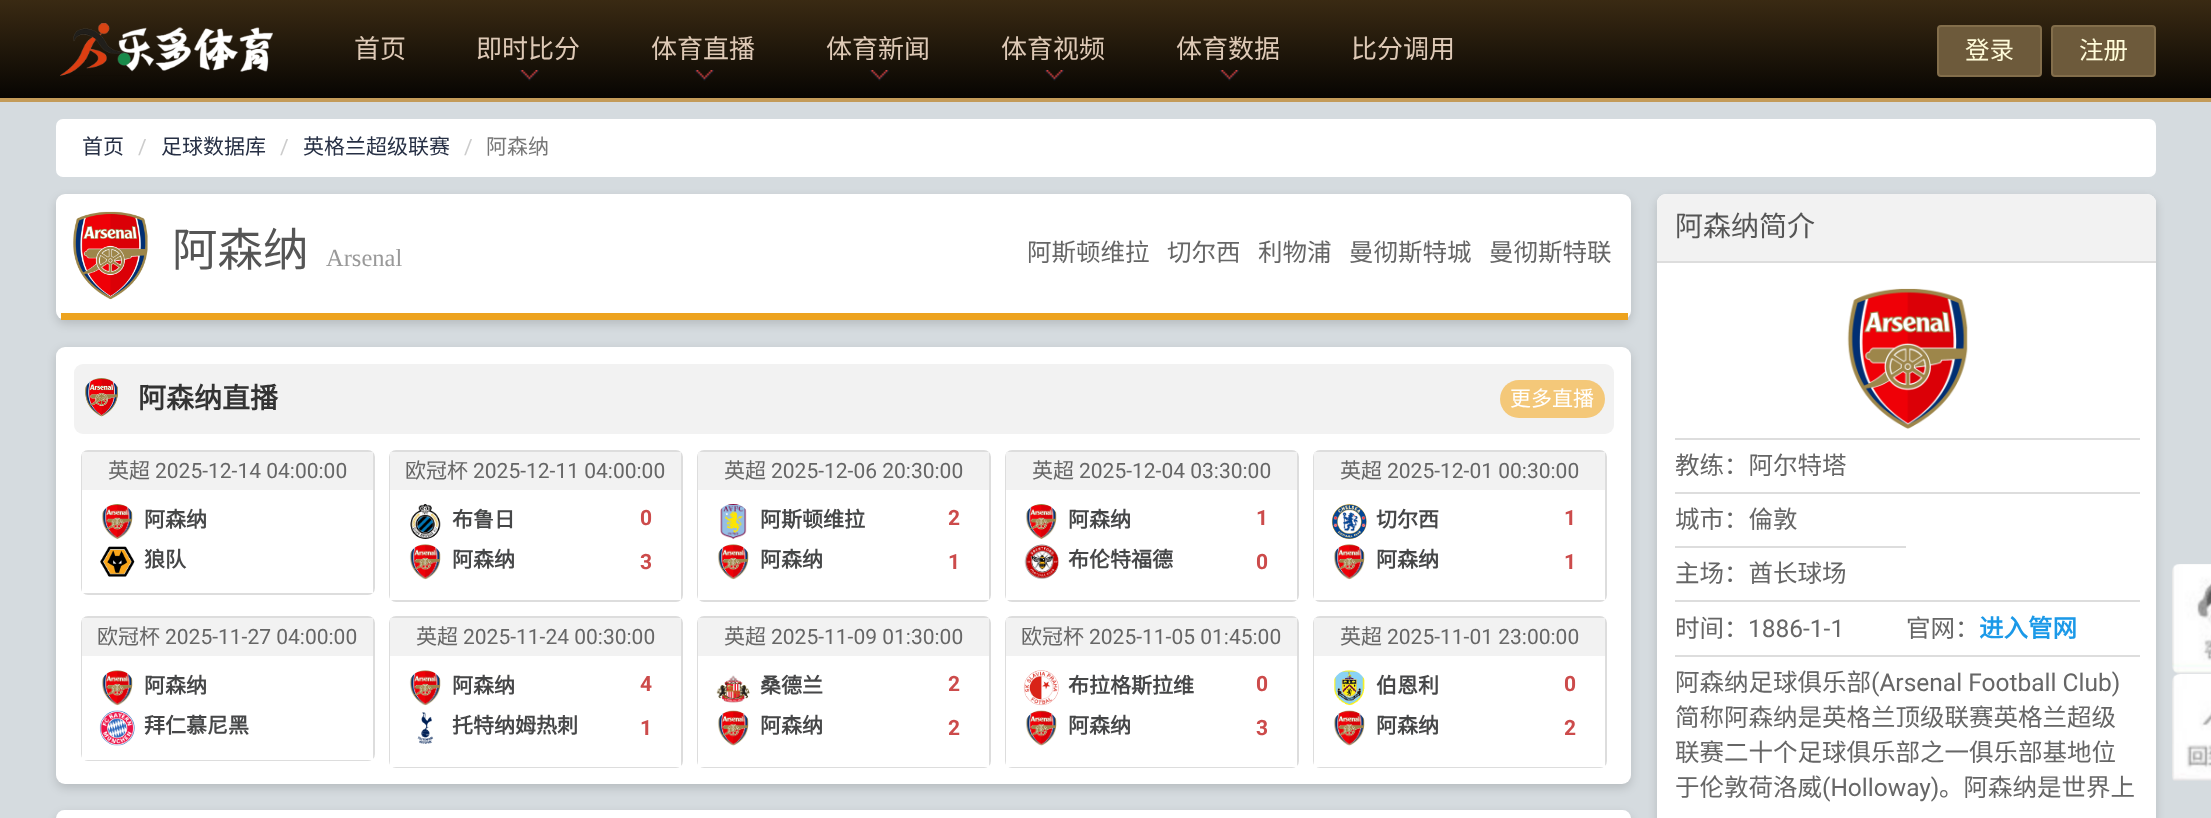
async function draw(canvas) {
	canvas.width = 2211;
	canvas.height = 818;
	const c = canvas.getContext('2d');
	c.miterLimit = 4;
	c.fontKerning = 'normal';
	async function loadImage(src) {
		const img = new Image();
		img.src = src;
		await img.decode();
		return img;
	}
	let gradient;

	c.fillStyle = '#d5dbdf';
	c.fillRect(0, 0, 2211, 818);
	gradient = c.createLinearGradient(1106, 0, 1106, 98);
	gradient.addColorStop(0, '#3a2a13');
	gradient.addColorStop(1, '#070502');
	c.fillStyle = gradient;
	c.fillRect(0, 0, 2211, 98);
	c.fillStyle = '#c39b59';
	c.fillRect(0, 98, 2211, 4);
	c.drawImage(await loadImage('img1.png'), 60, 23, 213, 53);
	c.font = '26px Noto Sans CJK SC';
	c.fillStyle = '#dec9b6';
	c.fillText('首页', 354, 58);
	c.fillText('即时比分', 476, 58);
	c.drawImage(await loadImage('img2.png'), 519, 70, 20, 11);
	c.fillText('体育直播', 651, 58);
	c.drawImage(await loadImage('img2.png'), 694, 70, 20, 11);
	c.fillText('体育新闻', 826, 58);
	c.drawImage(await loadImage('img2.png'), 869, 70, 20, 11);
	c.fillText('体育视频', 1001, 58);
	c.drawImage(await loadImage('img2.png'), 1044, 70, 20, 11);
	c.fillText('体育数据', 1176, 58);
	c.drawImage(await loadImage('img2.png'), 1219, 70, 20, 11);
	c.fillText('比分调用', 1351, 58);
	c.fillStyle = '#6d5a3b';
	c.beginPath();
	c.roundRect(1938, 26, 103, 50, 3);
	c.fill();
	c.strokeStyle = '#836e4b';
	c.lineWidth = 2;
	c.stroke();
	c.font = '24.5px Noto Sans CJK SC';
	c.fillStyle = '#fffcd9';
	c.fillText('登录', 1965, 59);
	c.fillStyle = '#6d5a3b';
	c.beginPath();
	c.roundRect(2052, 26, 103, 50, 3);
	c.fill();
	c.stroke();
	c.fillStyle = '#fffcd9';
	c.fillText('注册', 2079, 59);
	c.fillStyle = '#fff';
	c.beginPath();
	c.roundRect(56, 119, 2100, 58, 7);
	c.fill();
	c.font = '21px Noto Sans CJK SC';
	c.fillStyle = '#262f44';
	c.fillText('首页', 82, 154);
	c.font = '21px Roboto';
	c.fillStyle = '#ccc';
	c.fillText('/', 138, 154);
	c.font = '21px Noto Sans CJK SC';
	c.fillStyle = '#262f44';
	c.fillText('足球数据库', 161, 154);
	c.font = '21px Roboto';
	c.fillStyle = '#ccc';
	c.fillText('/', 280, 154);
	c.font = '21px Noto Sans CJK SC';
	c.fillStyle = '#262f44';
	c.fillText('英格兰超级联赛', 303, 154);
	c.font = '21px Roboto';
	c.fillStyle = '#ccc';
	c.fillText('/', 464, 154);
	c.font = '21px Noto Sans CJK SC';
	c.fillStyle = '#777';
	c.fillText('阿森纳', 486, 154);
	c.fillStyle = '#00000024';
	c.filter = 'blur(5px)';
	c.beginPath();
	c.roundRect(56, 198, 1575, 126, 9);
	c.fill();
	c.filter = 'none';
	c.fillStyle = '#fff';
	c.beginPath();
	c.roundRect(56, 194, 1575, 126, 9);
	c.fill();
	c.fillStyle = '#eda31f';
	c.fillRect(61, 313, 1567, 7);
	c.drawImage(await loadImage('img3.png'), 73, 211, 75, 89);
	c.font = '45.5px Noto Sans CJK SC';
	c.fillStyle = '#555';
	c.fillText('阿森纳', 172, 266);
	c.font = '24.5px Liberation Serif';
	c.fillStyle = '#999';
	c.fillText('Arsenal', 326, 266);
	c.font = '24.5px Noto Sans CJK SC';
	c.fillStyle = '#666';
	for (const [text, x, y] of [
		['阿斯顿维拉', 1027, 261],
		['切尔西', 1167, 261],
		['利物浦', 1258, 261],
		['曼彻斯特城', 1349, 261],
		['曼彻斯特联', 1489, 261],
	]) {
		c.fillText(text, x, y);
	}
	c.fillStyle = '#00000024';
	c.filter = 'blur(5px)';
	c.beginPath();
	c.roundRect(56, 350, 1575, 438, 9);
	c.fill();
	c.filter = 'none';
	c.fillStyle = '#fff';
	c.beginPath();
	c.roundRect(56, 347, 1575, 437, 9);
	c.fill();
	c.fillStyle = '#f2f2f2';
	c.beginPath();
	c.roundRect(74, 364, 1540, 70, 9);
	c.fill();
	c.drawImage(await loadImage('img4.png'), 85, 378, 33, 39);
	c.font = 'bold 28px Noto Sans CJK SC';
	c.fillStyle = '#333';
	c.fillText('阿森纳直播', 138, 408);
	c.fillStyle = '#f4c879';
	c.beginPath();
	c.roundRect(1500, 380, 105, 38, 19);
	c.fill();
	c.font = '21px Noto Sans CJK SC';
	c.fillStyle = '#fff';
	c.fillText('更多直播', 1510, 406);
	c.beginPath();
	c.roundRect(82, 451, 292, 143, 6);
	c.strokeStyle = '#ddd';
	c.stroke();
	c.fillStyle = '#f2f2f2';
	c.fillRect(82, 452, 291, 38);
	c.fillStyle = '#666';
	c.fillText('英超', 108, 478);
	c.font = '21px Roboto';
	c.fillText('2025-12-14 04:00:00', 155, 478);
	c.fillStyle = '#fff';
	c.fillRect(82, 490, 291, 103);
	c.drawImage(await loadImage('img5.png'), 101, 504, 32, 35);
	c.font = 'bold 21px Noto Sans CJK SC';
	c.fillStyle = '#464748';
	c.fillText('阿森纳', 144, 527);
	c.drawImage(await loadImage('img6.png'), 100, 546, 35, 31);
	c.fillText('狼队', 144, 567);
	c.beginPath();
	c.roundRect(390, 451, 292, 150, 6);
	c.stroke();
	c.fillStyle = '#f2f2f2';
	c.fillRect(390, 452, 291, 38);
	c.font = '21px Noto Sans CJK SC';
	c.fillStyle = '#666';
	c.fillText('欧冠杯', 405, 478);
	c.font = '21px Roboto';
	c.fillText('2025-12-11 04:00:00', 473, 478);
	c.fillStyle = '#fff';
	c.fillRect(390, 490, 291, 110);
	c.drawImage(await loadImage('img7.png'), 410, 504, 31, 35);
	c.font = 'bold 21px Noto Sans CJK SC';
	c.fillStyle = '#464748';
	c.fillText('布鲁日', 452, 527);
	c.drawImage(await loadImage('img8.png'), 409, 544, 32, 36);
	c.fillText('阿森纳', 452, 567);
	c.font = 'bold 21px Roboto';
	c.fillStyle = '#cc4b4b';
	c.fillText('0', 640, 525);
	c.fillText('3', 640, 569);
	c.beginPath();
	c.roundRect(698, 451, 292, 150, 6);
	c.stroke();
	c.fillStyle = '#f2f2f2';
	c.fillRect(698, 452, 291, 38);
	c.font = '21px Noto Sans CJK SC';
	c.fillStyle = '#666';
	c.fillText('英超', 724, 478);
	c.font = '21px Roboto';
	c.fillText('2025-12-06 20:30:00', 771, 478);
	c.fillStyle = '#fff';
	c.fillRect(698, 490, 291, 110);
	c.drawImage(await loadImage('img9.png'), 720, 504, 27, 35);
	c.font = 'bold 21px Noto Sans CJK SC';
	c.fillStyle = '#464748';
	c.fillText('阿斯顿维拉', 760, 527);
	c.drawImage(await loadImage('img10.png'), 717, 544, 32, 36);
	c.fillText('阿森纳', 760, 567);
	c.font = 'bold 21px Roboto';
	c.fillStyle = '#cc4b4b';
	c.fillText('2', 948, 525);
	c.fillText('1', 948, 569);
	c.beginPath();
	c.roundRect(1006, 451, 292, 150, 6);
	c.stroke();
	c.fillStyle = '#f2f2f2';
	c.fillRect(1006, 452, 291, 38);
	c.font = '21px Noto Sans CJK SC';
	c.fillStyle = '#666';
	c.fillText('英超', 1032, 478);
	c.font = '21px Roboto';
	c.fillText('2025-12-04 03:30:00', 1079, 478);
	c.fillStyle = '#fff';
	c.fillRect(1006, 490, 291, 110);
	c.drawImage(await loadImage('img11.png'), 1025, 504, 32, 35);
	c.font = 'bold 21px Noto Sans CJK SC';
	c.fillStyle = '#464748';
	c.fillText('阿森纳', 1068, 527);
	c.drawImage(await loadImage('img12.png'), 1024, 544, 35, 35);
	c.fillText('布伦特福德', 1068, 567);
	c.font = 'bold 21px Roboto';
	c.fillStyle = '#cc4b4b';
	c.fillText('1', 1256, 525);
	c.fillText('0', 1256, 569);
	c.beginPath();
	c.roundRect(1314, 451, 292, 150, 6);
	c.stroke();
	c.fillStyle = '#f2f2f2';
	c.fillRect(1314, 452, 291, 38);
	c.font = '21px Noto Sans CJK SC';
	c.fillStyle = '#666';
	c.fillText('英超', 1340, 478);
	c.font = '21px Roboto';
	c.fillText('2025-12-01 00:30:00', 1387, 478);
	c.fillStyle = '#fff';
	c.fillRect(1314, 490, 291, 110);
	c.drawImage(await loadImage('img13.png'), 1331, 504, 36, 35);
	c.font = 'bold 21px Noto Sans CJK SC';
	c.fillStyle = '#464748';
	c.fillText('切尔西', 1376, 527);
	c.drawImage(await loadImage('img14.png'), 1333, 544, 32, 36);
	c.fillText('阿森纳', 1376, 567);
	c.font = 'bold 21px Roboto';
	c.fillStyle = '#cc4b4b';
	c.fillText('1', 1564, 525);
	c.fillText('1', 1564, 569);
	c.beginPath();
	c.roundRect(82, 617, 292, 143, 6);
	c.stroke();
	c.fillStyle = '#f2f2f2';
	c.fillRect(82, 618, 291, 38);
	c.font = '21px Noto Sans CJK SC';
	c.fillStyle = '#666';
	c.fillText('欧冠杯', 97, 644);
	c.font = '21px Roboto';
	c.fillText('2025-11-27 04:00:00', 165, 644);
	c.fillStyle = '#fff';
	c.fillRect(82, 656, 291, 104);
	c.drawImage(await loadImage('img15.png'), 101, 670, 32, 36);
	c.font = 'bold 21px Noto Sans CJK SC';
	c.fillStyle = '#464748';
	c.fillText('阿森纳', 144, 693);
	c.drawImage(await loadImage('img16.png'), 99, 710, 36, 36);
	c.fillText('拜仁慕尼黑', 144, 733);
	c.beginPath();
	c.roundRect(390, 617, 292, 150, 6);
	c.stroke();
	c.fillStyle = '#f2f2f2';
	c.fillRect(390, 618, 291, 38);
	c.font = '21px Noto Sans CJK SC';
	c.fillStyle = '#666';
	c.fillText('英超', 416, 644);
	c.font = '21px Roboto';
	c.fillText('2025-11-24 00:30:00', 463, 644);
	c.fillStyle = '#fff';
	c.fillRect(390, 656, 291, 111);
	c.drawImage(await loadImage('img8.png'), 409, 670, 32, 36);
	c.font = 'bold 21px Noto Sans CJK SC';
	c.fillStyle = '#464748';
	c.fillText('阿森纳', 452, 693);
	c.drawImage(await loadImage('img17.png'), 417, 712, 17, 32);
	c.fillText('托特纳姆热刺', 452, 733);
	c.font = 'bold 21px Roboto';
	c.fillStyle = '#cc4b4b';
	c.fillText('4', 640, 691);
	c.fillText('1', 640, 735);
	c.beginPath();
	c.roundRect(698, 617, 292, 150, 6);
	c.stroke();
	c.fillStyle = '#f2f2f2';
	c.fillRect(698, 618, 291, 38);
	c.font = '21px Noto Sans CJK SC';
	c.fillStyle = '#666';
	c.fillText('英超', 724, 644);
	c.font = '21px Roboto';
	c.fillText('2025-11-09 01:30:00', 771, 644);
	c.fillStyle = '#fff';
	c.fillRect(698, 656, 291, 111);
	c.drawImage(await loadImage('img18.png'), 716, 675, 34, 28);
	c.font = 'bold 21px Noto Sans CJK SC';
	c.fillStyle = '#464748';
	c.fillText('桑德兰', 760, 693);
	c.drawImage(await loadImage('img19.png'), 717, 710, 32, 36);
	c.fillText('阿森纳', 760, 733);
	c.font = 'bold 21px Roboto';
	c.fillStyle = '#cc4b4b';
	c.fillText('2', 948, 691);
	c.fillText('2', 948, 735);
	c.beginPath();
	c.roundRect(1006, 617, 292, 150, 6);
	c.stroke();
	c.fillStyle = '#f2f2f2';
	c.fillRect(1006, 618, 291, 38);
	c.font = '21px Noto Sans CJK SC';
	c.fillStyle = '#666';
	c.fillText('欧冠杯', 1021, 644);
	c.font = '21px Roboto';
	c.fillText('2025-11-05 01:45:00', 1089, 644);
	c.fillStyle = '#fff';
	c.fillRect(1006, 656, 291, 111);
	c.drawImage(await loadImage('img20.png'), 1023, 670, 36, 36);
	c.font = 'bold 21px Noto Sans CJK SC';
	c.fillStyle = '#464748';
	c.fillText('布拉格斯拉维', 1068, 693);
	c.drawImage(await loadImage('img21.png'), 1025, 710, 32, 36);
	c.fillText('阿森纳', 1068, 733);
	c.font = 'bold 21px Roboto';
	c.fillStyle = '#cc4b4b';
	c.fillText('0', 1256, 691);
	c.fillText('3', 1256, 735);
	c.beginPath();
	c.roundRect(1314, 617, 292, 150, 6);
	c.stroke();
	c.fillStyle = '#f2f2f2';
	c.fillRect(1314, 618, 291, 38);
	c.font = '21px Noto Sans CJK SC';
	c.fillStyle = '#666';
	c.fillText('英超', 1340, 644);
	c.font = '21px Roboto';
	c.fillText('2025-11-01 23:00:00', 1387, 644);
	c.fillStyle = '#fff';
	c.fillRect(1314, 656, 291, 111);
	c.drawImage(await loadImage('img22.png'), 1334, 670, 31, 36);
	c.font = 'bold 21px Noto Sans CJK SC';
	c.fillStyle = '#464748';
	c.fillText('伯恩利', 1376, 693);
	c.drawImage(await loadImage('img23.png'), 1333, 710, 32, 36);
	c.fillText('阿森纳', 1376, 733);
	c.font = 'bold 21px Roboto';
	c.fillStyle = '#cc4b4b';
	c.fillText('0', 1564, 691);
	c.fillText('2', 1564, 735);
	c.fillStyle = '#00000024';
	c.filter = 'blur(5px)';
	c.beginPath();
	c.roundRect(56, 814, 1575, 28, 9);
	c.fill();
	c.filter = 'none';
	c.fillStyle = '#fff';
	c.beginPath();
	c.roundRect(56, 810, 1575, 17, 9);
	c.fill();
	c.fillStyle = '#00000024';
	c.filter = 'blur(5px)';
	c.beginPath();
	c.roundRect(1657, 198, 499, 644, 9);
	c.fill();
	c.filter = 'none';
	c.fillStyle = '#fff';
	c.beginPath();
	c.roundRect(1657, 194, 499, 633, 9);
	c.fill();
	c.fillStyle = '#f2f2f2';
	c.beginPath();
	c.roundRect(1657, 194, 499, 69, [9, 9, 0, 0]);
	c.fill();
	c.fillStyle = '#ddd';
	c.fillRect(1657, 261, 499, 2);
	c.font = '28px Noto Sans CJK SC';
	c.fillStyle = '#555';
	c.fillText('阿森纳简介', 1675, 236);
	c.fillStyle = '#ddd';
	c.fillRect(1675, 438, 465, 2);
	c.drawImage(await loadImage('img24.png'), 1847, 288, 121, 141);
	c.fillRect(1675, 492, 465, 2);
	c.font = '24.5px Noto Sans CJK SC';
	c.fillStyle = '#666';
	c.fillText('教练：阿尔特塔', 1675, 474);
	c.fillStyle = '#ddd';
	c.fillRect(1675, 546, 231, 2);
	c.fillStyle = '#666';
	c.fillText('城市：倫敦', 1675, 528);
	c.fillStyle = '#ddd';
	c.fillRect(1675, 600, 465, 2);
	c.fillStyle = '#666';
	c.fillText('主场：酋长球场', 1675, 582);
	c.fillText('时间：', 1675, 637);
	c.font = '24.5px Roboto';
	c.fillText('1886-1-1', 1748, 637);
	c.fillStyle = '#ddd';
	c.fillRect(1675, 655, 465, 2);
	c.font = '24.5px Noto Sans CJK SC';
	c.fillStyle = '#666';
	c.fillText('官网：', 1906, 637);
	c.font = 'bold 24.5px Noto Sans CJK SC';
	c.fillStyle = '#1b99e8';
	c.fillText('进入管网', 1979, 637);
	c.font = '24.5px Noto Sans CJK SC';
	c.fillStyle = '#666';
	c.fillText('阿森纳足球俱乐部', 1675, 691);
	c.font = '24.5px Roboto';
	c.fillText('(Arsenal Football Club)', 1871, 691);
	c.font = '24.5px Noto Sans CJK SC';
	for (const [text, x, y] of [
		['简称阿森纳是英格兰顶级联赛英格兰超级', 1675, 726],
		['联赛二十个足球俱乐部之一俱乐部基地位', 1675, 761],
		['于伦敦荷洛威', 1675, 796],
	]) {
		c.fillText(text, x, y);
	}
	c.font = '24.5px Roboto';
	c.fillText('(Holloway)', 1822, 796);
	c.font = '24.5px Noto Sans CJK SC';
	c.fillText('。阿森纳是世界上', 1939, 796);
	c.drawImage(await loadImage('img25.png'), 2172, 564, 39, 111);
	c.drawImage(await loadImage('img26.png'), 2172, 674, 39, 107);
}

draw(document.querySelector('canvas'));
